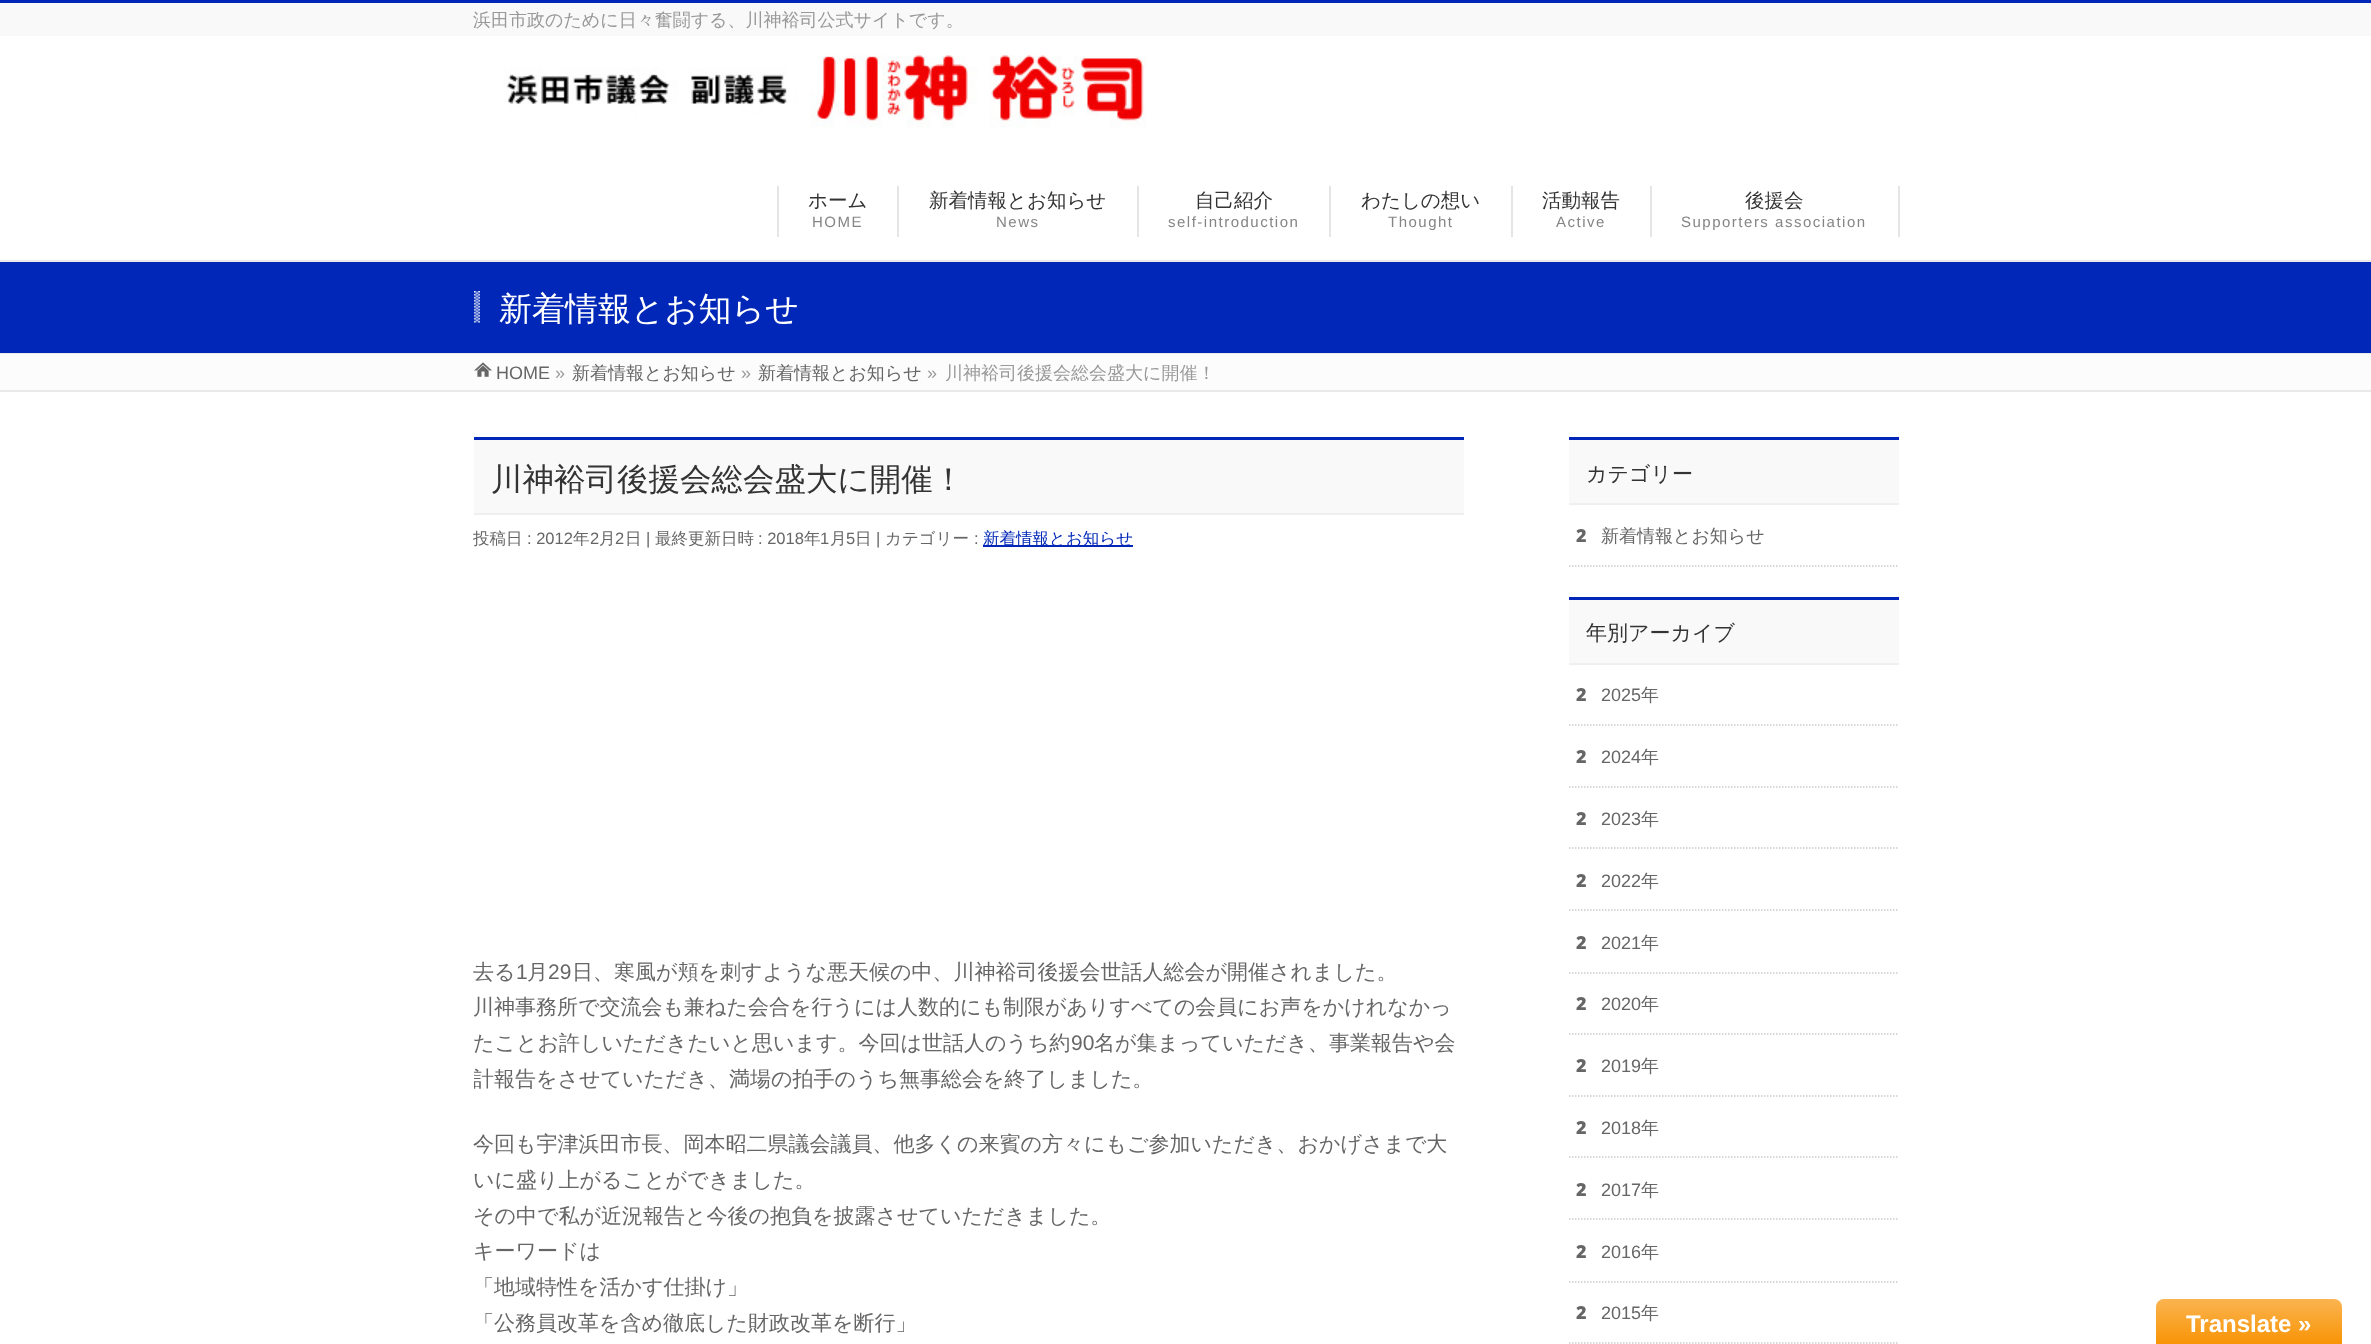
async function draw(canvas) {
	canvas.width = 2371;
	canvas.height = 1344;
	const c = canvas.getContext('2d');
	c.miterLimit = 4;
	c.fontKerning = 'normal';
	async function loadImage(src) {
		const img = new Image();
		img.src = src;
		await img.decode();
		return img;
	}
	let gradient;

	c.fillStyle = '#fff';
	c.fillRect(0, 0, 2371, 1344);
	c.fillStyle = '#f9f9f9';
	c.fillRect(0, 3, 2371, 33);
	c.fillStyle = '#0027b7';
	c.fillRect(0, 0, 2371, 3);
	c.font = '500 18px WenQuanYi Zen Hei';
	c.fillStyle = '#999';
	c.fillText('浜田市政のために日々奮闘する、川神裕司公式サイトです。', 473, 26);
	c.drawImage(await loadImage('img1.png'), 503, 55, 643, 73);
	c.fillStyle = '#e5e5e5';
	c.fillRect(897, 186, 2, 51);
	c.fillRect(777, 186, 2, 51);
	c.font = '500 19.5px WenQuanYi Zen Hei';
	c.fillStyle = '#333';
	c.fillText('ホーム', 808, 207);
	c.letterSpacing = '1.5px';
	c.font = '15px Liberation Sans';
	c.fillStyle = '#858585';
	c.fillText('HOME', 812, 227);
	c.fillStyle = '#e5e5e5';
	c.fillRect(1137, 186, 2, 51);
	c.letterSpacing = '0px';
	c.font = '500 19.5px WenQuanYi Zen Hei';
	c.fillStyle = '#333';
	c.fillText('新着情報とお知らせ', 929, 207);
	c.letterSpacing = '1.5px';
	c.font = '15px Liberation Sans';
	c.fillStyle = '#858585';
	c.fillText('News', 996, 227);
	c.fillStyle = '#e5e5e5';
	c.fillRect(1329, 186, 2, 51);
	c.letterSpacing = '0px';
	c.font = '500 19.5px WenQuanYi Zen Hei';
	c.fillStyle = '#333';
	c.fillText('自己紹介', 1195, 207);
	c.letterSpacing = '1.5px';
	c.font = '15px Liberation Sans';
	c.fillStyle = '#858585';
	c.fillText('self‐introduction', 1168, 227);
	c.fillStyle = '#e5e5e5';
	c.fillRect(1511, 186, 2, 51);
	c.letterSpacing = '0px';
	c.font = '500 19.5px WenQuanYi Zen Hei';
	c.fillStyle = '#333';
	c.fillText('わたしの想い', 1361, 207);
	c.letterSpacing = '1.5px';
	c.font = '15px Liberation Sans';
	c.fillStyle = '#858585';
	c.fillText('Thought', 1388, 227);
	c.fillStyle = '#e5e5e5';
	c.fillRect(1650, 186, 2, 51);
	c.letterSpacing = '0px';
	c.font = '500 19.5px WenQuanYi Zen Hei';
	c.fillStyle = '#333';
	c.fillText('活動報告', 1542, 207);
	c.letterSpacing = '1.5px';
	c.font = '15px Liberation Sans';
	c.fillStyle = '#858585';
	c.fillText('Active', 1556, 227);
	c.fillStyle = '#e5e5e5';
	c.fillRect(1898, 186, 2, 51);
	c.letterSpacing = '0px';
	c.font = '500 19.5px WenQuanYi Zen Hei';
	c.fillStyle = '#333';
	c.fillText('後援会', 1745, 207);
	c.letterSpacing = '1.5px';
	c.font = '15px Liberation Sans';
	c.fillStyle = '#858585';
	c.fillText('Supporters association', 1681, 227);
	for (const [x, y, w, h, color] of [
		[0, 262, 2371, 91, '#0027b7'],
		[0, 260, 2371, 2, '#e9e9e9'],
		[0, 353, 2371, 1, '#e9e9e9'],
	]) {
		c.fillStyle = color;
		c.fillRect(x, y, w, h);
	}
	c.drawImage(await loadImage('img2.png'), 474, 291, 6, 32);
	c.letterSpacing = '0px';
	c.font = '500 33px WenQuanYi Zen Hei';
	c.fillStyle = '#fff';
	c.fillText('新着情報とお知らせ', 499, 320);
	c.fillStyle = '#fcfcfc';
	c.fillRect(0, 354, 2371, 36);
	c.drawImage(await loadImage('img3.png'), 474, 362, 18, 15);
	c.font = '18px Liberation Sans';
	c.fillStyle = '#666';
	c.fillText('HOME', 496, 379);
	c.fillStyle = '#999';
	c.fillText('»', 555, 379);
	c.font = '500 18px WenQuanYi Zen Hei';
	c.fillStyle = '#666';
	c.fillText('新着情報とお知らせ', 572, 379);
	c.font = '18px Liberation Sans';
	c.fillStyle = '#999';
	c.fillText('»', 741, 379);
	c.font = '500 18px WenQuanYi Zen Hei';
	c.fillStyle = '#666';
	c.fillText('新着情報とお知らせ', 758, 379);
	c.font = '18px Liberation Sans';
	c.fillStyle = '#999';
	c.fillText('»', 927, 379);
	c.font = '500 18px WenQuanYi Zen Hei';
	c.fillText('川神裕司後援会総会盛大に開催！', 945, 379);
	for (const [x, y, w, h, color] of [
		[0, 390, 2371, 2, '#e9e9e9'],
		[474, 440, 990, 73, '#f9f9f9'],
		[474, 437, 990, 3, '#0027b7'],
		[474, 513, 990, 2, '#efefef'],
	]) {
		c.fillStyle = color;
		c.fillRect(x, y, w, h);
	}
	c.font = '500 31.5px WenQuanYi Zen Hei';
	c.fillStyle = '#333';
	c.fillText('川神裕司後援会総会盛大に開催！', 491, 490);
	c.font = '500 16.5px WenQuanYi Zen Hei';
	c.fillStyle = '#666';
	c.fillText('投稿日', 473, 544);
	c.font = '16.5px Liberation Sans';
	c.fillText(': 2012', 527, 544);
	c.font = '500 16.5px WenQuanYi Zen Hei';
	c.fillText('年', 573, 544);
	c.font = '16.5px Liberation Sans';
	c.fillText('2', 590, 544);
	c.font = '500 16.5px WenQuanYi Zen Hei';
	c.fillText('月', 599, 544);
	c.font = '16.5px Liberation Sans';
	c.fillText('2', 615, 544);
	c.font = '500 16.5px WenQuanYi Zen Hei';
	c.fillText('日', 625, 544);
	c.font = '16.5px Liberation Sans';
	c.fillText('|', 646, 544);
	c.font = '500 16.5px WenQuanYi Zen Hei';
	c.fillText('最終更新日時', 655, 544);
	c.font = '16.5px Liberation Sans';
	c.fillText(': 2018', 758, 544);
	c.font = '500 16.5px WenQuanYi Zen Hei';
	c.fillText('年', 804, 544);
	c.font = '16.5px Liberation Sans';
	c.fillText('1', 820, 544);
	c.font = '500 16.5px WenQuanYi Zen Hei';
	c.fillText('月', 830, 544);
	c.font = '16.5px Liberation Sans';
	c.fillText('5', 846, 544);
	c.font = '500 16.5px WenQuanYi Zen Hei';
	c.fillText('日', 855, 544);
	c.font = '16.5px Liberation Sans';
	c.fillText('|', 876, 544);
	c.font = '500 16.5px WenQuanYi Zen Hei';
	c.fillText('カテゴリー', 885, 544);
	c.font = '16.5px Liberation Sans';
	c.fillText(':', 974, 544);
	c.fillStyle = '#0027b7';
	c.fillRect(983, 545, 150, 2);
	c.font = '500 16.5px WenQuanYi Zen Hei';
	c.fillText('新着情報とお知らせ', 983, 544);
	c.font = '500 21px WenQuanYi Zen Hei';
	c.fillStyle = '#666';
	c.fillText('去る', 473, 979);
	c.font = '21px Liberation Sans';
	c.fillText('1', 516, 979);
	c.font = '500 21px WenQuanYi Zen Hei';
	c.fillText('月', 527, 979);
	c.font = '21px Liberation Sans';
	c.fillText('29', 548, 979);
	c.font = '500 21px WenQuanYi Zen Hei';
	for (const [text, x, y] of [
		['日、寒風が頬を刺すような悪天候の中、川神裕司後援会世話人総会が開催されました。', 572, 979],
		['川神事務所で交流会も兼ねた会合を行うには人数的にも制限がありすべての会員にお声をかけれなかっ', 473, 1014],
		['たことお許しいただきたいと思います。今回は世話人のうち約', 473, 1050],
	]) {
		c.fillText(text, x, y);
	}
	c.font = '21px Liberation Sans';
	c.fillText('90', 1071, 1050);
	c.font = '500 21px WenQuanYi Zen Hei';
	c.fillText('名が集まっていただき、事業報告や会', 1094, 1050);
	c.save();
	c.beginPath();
	c.rect(474, 587, 990, 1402);
	c.clip();
	c.fillText('計報告をさせていただき、満場の拍手のうち無事総会を終了しました。', 473, 1086);
	c.restore();
	for (const [text, x, y] of [
		['今回も宇津浜田市長、岡本昭二県議会議員、他多くの来賓の方々にもご参加いただき、おかげさまで大', 473, 1151],
		['いに盛り上がることができました。', 473, 1187],
		['その中で私が近況報告と今後の抱負を披露させていただきました。', 473, 1223],
		['キーワードは', 473, 1258],
		['「地域特性を活かす仕掛け」', 473, 1294],
		['「公務員改革を含め徹底した財政改革を断行」', 473, 1330],
	]) {
		c.fillText(text, x, y);
	}
	for (const [x, y, w, h, color] of [
		[1569, 440, 330, 63, '#f9f9f9'],
		[1569, 437, 330, 3, '#0027b7'],
		[1569, 503, 330, 2, '#efefef'],
	]) {
		c.fillStyle = color;
		c.fillRect(x, y, w, h);
	}
	c.fillStyle = '#333';
	c.fillText('カテゴリー', 1586, 481);
	c.beginPath();
	c.moveTo(1569, 566);
	c.lineTo(1899, 566);
	c.strokeStyle = '#ccc';
	c.lineWidth = 1.5;
	c.setLineDash([1.5, 1.5]);
	c.stroke();
	c.font = '900 18px Noto Sans';
	c.fillStyle = '#666';
	c.fillText('2', 1576, 542);
	c.font = '500 18px WenQuanYi Zen Hei';
	c.fillText('新着情報とお知らせ', 1601, 542);
	for (const [x, y, w, h, color] of [
		[1569, 600, 330, 63, '#f9f9f9'],
		[1569, 597, 330, 3, '#0027b7'],
		[1569, 663, 330, 2, '#efefef'],
	]) {
		c.fillStyle = color;
		c.fillRect(x, y, w, h);
	}
	c.font = '500 21px WenQuanYi Zen Hei';
	c.fillStyle = '#333';
	c.fillText('年別アーカイブ', 1586, 640);
	c.beginPath();
	c.moveTo(1569, 725);
	c.lineTo(1899, 725);
	c.stroke();
	c.font = '900 18px Noto Sans';
	c.fillStyle = '#666';
	c.fillText('2', 1576, 701);
	c.font = '18px Liberation Sans';
	c.fillText('2025', 1601, 701);
	c.font = '500 18px WenQuanYi Zen Hei';
	c.fillText('年', 1641, 701);
	c.beginPath();
	c.moveTo(1569, 787);
	c.lineTo(1899, 787);
	c.stroke();
	c.font = '900 18px Noto Sans';
	c.fillText('2', 1576, 763);
	c.font = '18px Liberation Sans';
	c.fillText('2024', 1601, 763);
	c.font = '500 18px WenQuanYi Zen Hei';
	c.fillText('年', 1641, 763);
	c.beginPath();
	c.moveTo(1569, 848);
	c.lineTo(1899, 848);
	c.stroke();
	c.font = '900 18px Noto Sans';
	c.fillText('2', 1576, 825);
	c.font = '18px Liberation Sans';
	c.fillText('2023', 1601, 825);
	c.font = '500 18px WenQuanYi Zen Hei';
	c.fillText('年', 1641, 825);
	c.beginPath();
	c.moveTo(1569, 910);
	c.lineTo(1899, 910);
	c.stroke();
	c.font = '900 18px Noto Sans';
	c.fillText('2', 1576, 887);
	c.font = '18px Liberation Sans';
	c.fillText('2022', 1601, 887);
	c.font = '500 18px WenQuanYi Zen Hei';
	c.fillText('年', 1641, 887);
	c.beginPath();
	c.moveTo(1569, 973);
	c.lineTo(1899, 973);
	c.stroke();
	c.font = '900 18px Noto Sans';
	c.fillText('2', 1576, 949);
	c.font = '18px Liberation Sans';
	c.fillText('2021', 1601, 949);
	c.font = '500 18px WenQuanYi Zen Hei';
	c.fillText('年', 1641, 949);
	c.beginPath();
	c.moveTo(1569, 1034);
	c.lineTo(1899, 1034);
	c.stroke();
	c.font = '900 18px Noto Sans';
	c.fillText('2', 1576, 1010);
	c.font = '18px Liberation Sans';
	c.fillText('2020', 1601, 1010);
	c.font = '500 18px WenQuanYi Zen Hei';
	c.fillText('年', 1641, 1010);
	c.beginPath();
	c.moveTo(1569, 1096);
	c.lineTo(1899, 1096);
	c.stroke();
	c.font = '900 18px Noto Sans';
	c.fillText('2', 1576, 1072);
	c.font = '18px Liberation Sans';
	c.fillText('2019', 1601, 1072);
	c.font = '500 18px WenQuanYi Zen Hei';
	c.fillText('年', 1641, 1072);
	c.beginPath();
	c.moveTo(1569, 1157);
	c.lineTo(1899, 1157);
	c.stroke();
	c.font = '900 18px Noto Sans';
	c.fillText('2', 1576, 1134);
	c.font = '18px Liberation Sans';
	c.fillText('2018', 1601, 1134);
	c.font = '500 18px WenQuanYi Zen Hei';
	c.fillText('年', 1641, 1134);
	c.beginPath();
	c.moveTo(1569, 1219);
	c.lineTo(1899, 1219);
	c.stroke();
	c.font = '900 18px Noto Sans';
	c.fillText('2', 1576, 1196);
	c.font = '18px Liberation Sans';
	c.fillText('2017', 1601, 1196);
	c.font = '500 18px WenQuanYi Zen Hei';
	c.fillText('年', 1641, 1196);
	c.beginPath();
	c.moveTo(1569, 1282);
	c.lineTo(1899, 1282);
	c.stroke();
	c.font = '900 18px Noto Sans';
	c.fillText('2', 1576, 1258);
	c.font = '18px Liberation Sans';
	c.fillText('2016', 1601, 1258);
	c.font = '500 18px WenQuanYi Zen Hei';
	c.fillText('年', 1641, 1258);
	c.beginPath();
	c.moveTo(1569, 1343);
	c.lineTo(1899, 1343);
	c.stroke();
	c.font = '900 18px Noto Sans';
	c.fillText('2', 1576, 1319);
	c.font = '18px Liberation Sans';
	c.fillText('2015', 1601, 1319);
	c.font = '500 18px WenQuanYi Zen Hei';
	c.fillText('年', 1641, 1319);
	gradient = c.createLinearGradient(2249, 1299, 2249, 1344);
	gradient.addColorStop(0, '#fbb450');
	gradient.addColorStop(1, '#f89406');
	c.fillStyle = gradient;
	c.beginPath();
	c.roundRect(2156, 1299, 186, 45, [8, 8, 0, 0]);
	c.fill();
	c.font = 'bold 24px Liberation Sans';
	c.fillStyle = '#fff';
	c.fillText('Translate »', 2186, 1332);
}

draw(document.querySelector('canvas'));
